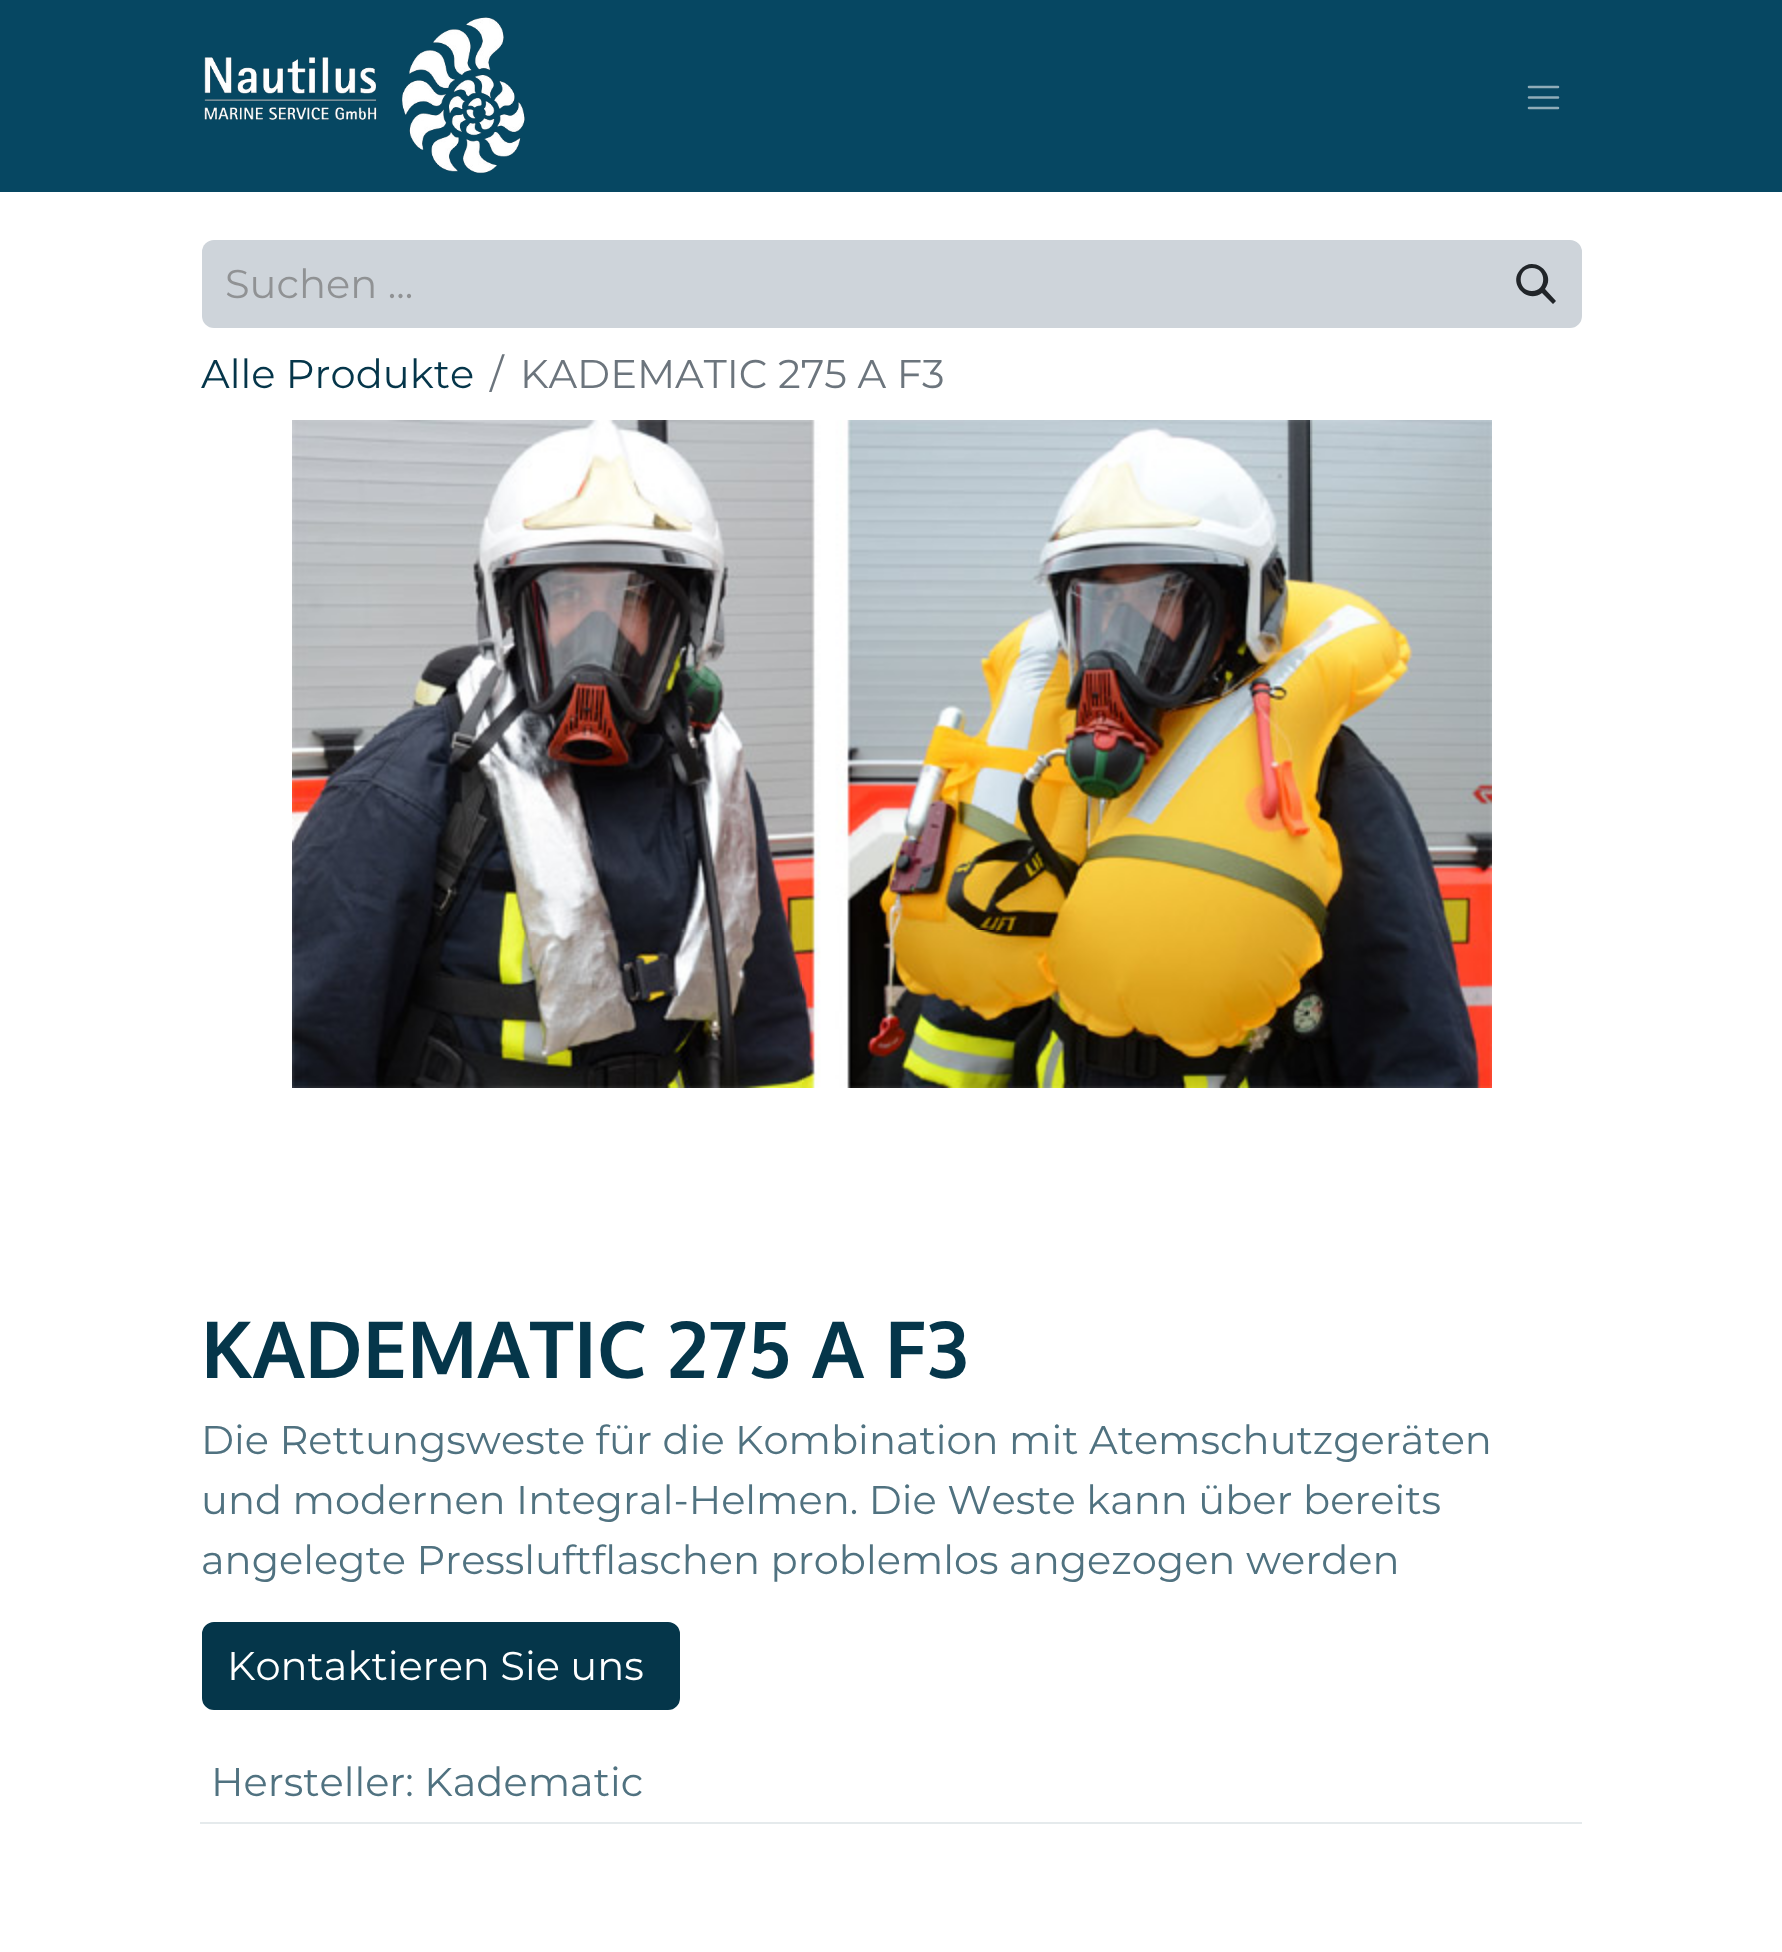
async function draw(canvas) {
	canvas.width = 1782;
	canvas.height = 1952;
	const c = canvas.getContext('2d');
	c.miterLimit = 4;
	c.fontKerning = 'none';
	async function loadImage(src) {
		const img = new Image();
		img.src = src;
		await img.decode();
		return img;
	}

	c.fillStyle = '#fff';
	c.fillRect(0, 0, 1782, 1952);
	c.fillStyle = '#064762';
	c.fillRect(0, 0, 1782, 192);
	c.drawImage(await loadImage('img1.png'), 204, 17, 321, 157);
	c.beginPath();
	c.moveTo(1529, 87);
	c.lineTo(1558, 87);
	c.moveTo(1529, 97.5);
	c.lineTo(1558, 97.5);
	c.moveTo(1529, 108);
	c.lineTo(1558, 108);
	c.strokeStyle = '#8facb8';
	c.lineWidth = 2.6;
	c.lineCap = 'round';
	c.stroke();
	c.fillStyle = '#ced4da';
	c.beginPath();
	c.roundRect(202, 240, 1290, 88, [12, 0, 0, 12]);
	c.fill();
	c.font = '40px Montserrat';
	c.fillStyle = '#909294';
	c.fillText('Suchen ...', 225, 298);
	c.fillStyle = '#ced4da';
	c.beginPath();
	c.roundRect(1491, 241, 90, 86, [0, 11, 11, 0]);
	c.fill();
	c.strokeStyle = '#ced4da';
	c.lineWidth = 2;
	c.stroke();
	c.fillStyle = '#212529';
	c.beginPath();
	c.moveTo(1520, 270);
	c.bezierCurveTo(1533, 254, 1557, 273, 1545, 289);
	c.lineTo(1556, 301);
	c.lineTo(1553, 304);
	c.lineTo(1542, 293);
	c.bezierCurveTo(1527, 304, 1508, 284, 1520, 270);
	c.closePath();
	c.moveTo(1532, 268);
	c.bezierCurveTo(1517, 268, 1517, 291, 1532, 291);
	c.bezierCurveTo(1547, 291, 1547, 268, 1532, 268);
	c.closePath();
	c.fill();
	c.fillStyle = '#05364a';
	c.fillText('Alle Produkte', 201, 388);
	c.fillStyle = '#6c757d';
	c.fillText('/', 490, 388);
	c.fillText('KADEMATIC 275 A F3', 520, 388);
	c.drawImage(await loadImage('img2.png'), 292, 420, 1200, 668);
	c.font = 'bold 78.5px Oxygen';
	c.fillStyle = '#05364a';
	c.fillText('KADEMATIC 275 A F3', 201, 1378);
	c.font = '40px Montserrat';
	c.fillStyle = '#507280';
	for (const [text, x, y] of [
		['Die Rettungsweste für die Kombination mit Atemschutzgeräten', 201, 1454],
		['und modernen Integral-Helmen. Die Weste kann über bereits', 201, 1514],
		['angelegte Pressluftflaschen problemlos angezogen werden', 201, 1574],
	]) {
		c.fillText(text, x, y);
	}
	c.fillStyle = '#05364a';
	c.beginPath();
	c.roundRect(203, 1623, 476, 86, 11);
	c.fill();
	c.strokeStyle = '#05364a';
	c.stroke();
	c.fillStyle = '#fff';
	c.fillText('Kontaktieren Sie uns', 227, 1680);
	c.fillStyle = '#e5eaec';
	c.fillRect(200, 1822, 1382, 2);
	c.fillStyle = '#507280';
	c.fillText('Hersteller: Kadematic', 211, 1796);
}

draw(document.querySelector('canvas'));
